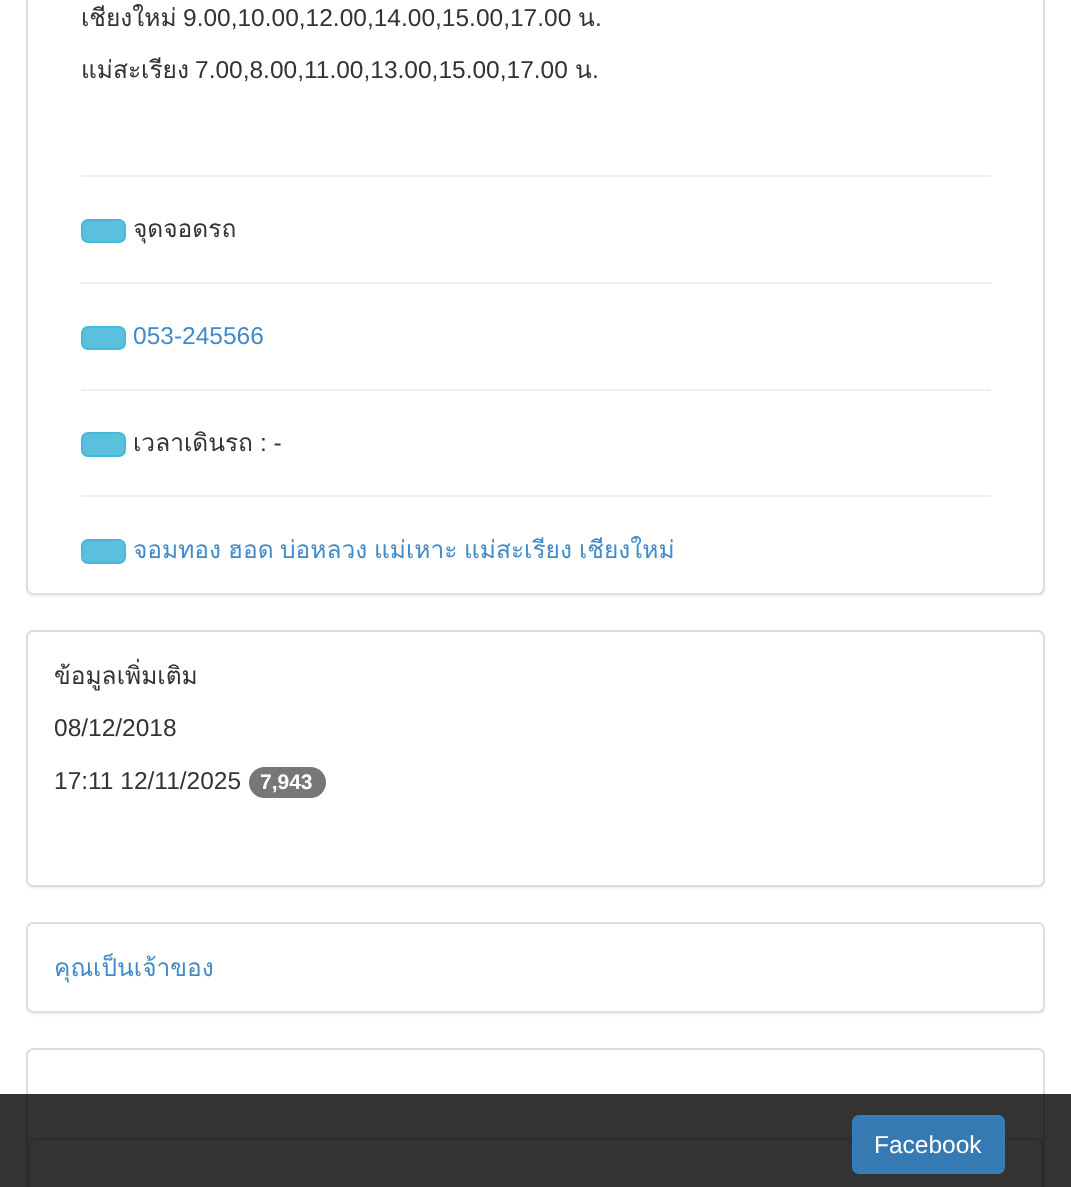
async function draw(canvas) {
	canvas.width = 1071;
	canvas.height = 1187;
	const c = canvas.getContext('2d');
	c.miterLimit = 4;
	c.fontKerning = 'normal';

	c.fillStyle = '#fff';
	c.fillRect(0, 0, 1071, 1187);
	c.fillStyle = '#0000000d';
	c.filter = 'blur(1px)';
	c.beginPath();
	c.roundRect(26, -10, 1019, 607, 7);
	c.fill();
	c.filter = 'none';
	c.fillStyle = '#fff';
	c.beginPath();
	c.roundRect(27, -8, 1017, 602, 6);
	c.fill();
	c.strokeStyle = '#ddd';
	c.lineWidth = 2;
	c.stroke();
	c.font = '24.5px Loma';
	c.fillStyle = '#333';
	c.fillText('เชียงใหม่', 81, 26);
	c.font = '24.5px Liberation Sans';
	c.fillText('9.00,10.00,12.00,14.00,15.00,17.00', 183, 26);
	c.font = '24.5px Loma';
	c.fillText('น', 578, 26);
	c.font = '24.5px Liberation Sans';
	c.fillText('.', 595, 26);
	c.font = '24.5px Loma';
	c.fillText('แม่สะเรียง', 81, 78);
	c.font = '24.5px Liberation Sans';
	c.fillText('7.00,8.00,11.00,13.00,15.00,17.00', 195, 78);
	c.font = '24.5px Loma';
	c.fillText('น', 575, 78);
	c.font = '24.5px Liberation Sans';
	c.fillText('.', 592, 78);
	c.fillStyle = '#eee';
	c.fillRect(81, 175, 910, 2);
	c.fillStyle = '#5bc0de';
	c.beginPath();
	c.roundRect(82, 220, 43, 22, 6);
	c.fill();
	c.strokeStyle = '#46b8da';
	c.stroke();
	c.font = '24.5px Loma';
	c.fillStyle = '#333';
	c.fillText('จุดจอดรถ', 133, 237);
	c.fillStyle = '#eee';
	c.fillRect(81, 282, 910, 2);
	c.fillStyle = '#5bc0de';
	c.beginPath();
	c.roundRect(82, 327, 43, 22, 6);
	c.fill();
	c.stroke();
	c.font = '24.5px Liberation Sans';
	c.fillStyle = '#428bca';
	c.fillText('053-245566', 133, 344);
	c.fillStyle = '#eee';
	c.fillRect(81, 389, 910, 2);
	c.fillStyle = '#5bc0de';
	c.beginPath();
	c.roundRect(82, 433, 43, 23, 6);
	c.fill();
	c.stroke();
	c.font = '24.5px Loma';
	c.fillStyle = '#333';
	c.fillText('เวลาเดินรถ', 133, 451);
	c.font = '24.5px Liberation Sans';
	c.fillText(': -', 260, 451);
	c.fillStyle = '#eee';
	c.fillRect(81, 495, 910, 2);
	c.fillStyle = '#5bc0de';
	c.beginPath();
	c.roundRect(82, 540, 43, 23, 6);
	c.fill();
	c.stroke();
	c.font = '24.5px Loma';
	c.fillStyle = '#428bca';
	for (const [text, x, y] of [
		['จอมทอง', 133, 558],
		['ฮอด', 228, 558],
		['บ่อหลวง', 280, 558],
		['แม่เหาะ', 374, 558],
		['แม่สะเรียง', 464, 558],
		['เชียงใหม่', 579, 558],
	]) {
		c.fillText(text, x, y);
	}
	c.fillStyle = '#0000000d';
	c.filter = 'blur(1px)';
	c.beginPath();
	c.roundRect(26, 632, 1019, 257, 7);
	c.fill();
	c.filter = 'none';
	c.fillStyle = '#fff';
	c.beginPath();
	c.roundRect(27, 631, 1017, 255, 6);
	c.fill();
	c.strokeStyle = '#ddd';
	c.stroke();
	c.fillStyle = '#333';
	c.fillText('ข้อมูลเพิ่มเติม', 54, 684);
	c.font = '24.5px Liberation Sans';
	c.fillText('08/12/2018', 54, 736);
	c.fillText('17:11 12/11/2025', 54, 789);
	c.fillStyle = '#777';
	c.beginPath();
	c.roundRect(249, 767, 77, 31, 15.5);
	c.fill();
	c.font = 'bold 21px Liberation Sans';
	c.fillStyle = '#fff';
	c.fillText('7,943', 260, 789);
	c.fillStyle = '#0000000d';
	c.filter = 'blur(1px)';
	c.beginPath();
	c.roundRect(26, 924, 1019, 91, 7);
	c.fill();
	c.filter = 'none';
	c.fillStyle = '#fff';
	c.beginPath();
	c.roundRect(27, 923, 1017, 89, 6);
	c.fill();
	c.stroke();
	c.font = '24.5px Loma';
	c.fillStyle = '#428bca';
	c.fillText('คุณเป็นเจ้าของ', 54, 976);
	c.beginPath();
	c.roundRect(27, 1049, 1017, 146, 6);
	c.stroke();
	c.beginPath();
	c.roundRect(29, 1139, 1013, 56, 6);
	c.stroke();
	c.fillStyle = '#000000cc';
	c.fillRect(0, 1094, 1071, 93);
	c.fillStyle = '#367ab4';
	c.beginPath();
	c.roundRect(853, 1116, 151, 57, 6);
	c.fill();
	c.strokeStyle = '#357ebd';
	c.stroke();
	c.font = '24.5px Liberation Sans';
	c.fillStyle = '#fff';
	c.fillText('Facebook', 874, 1153);
}

draw(document.querySelector('canvas'));
